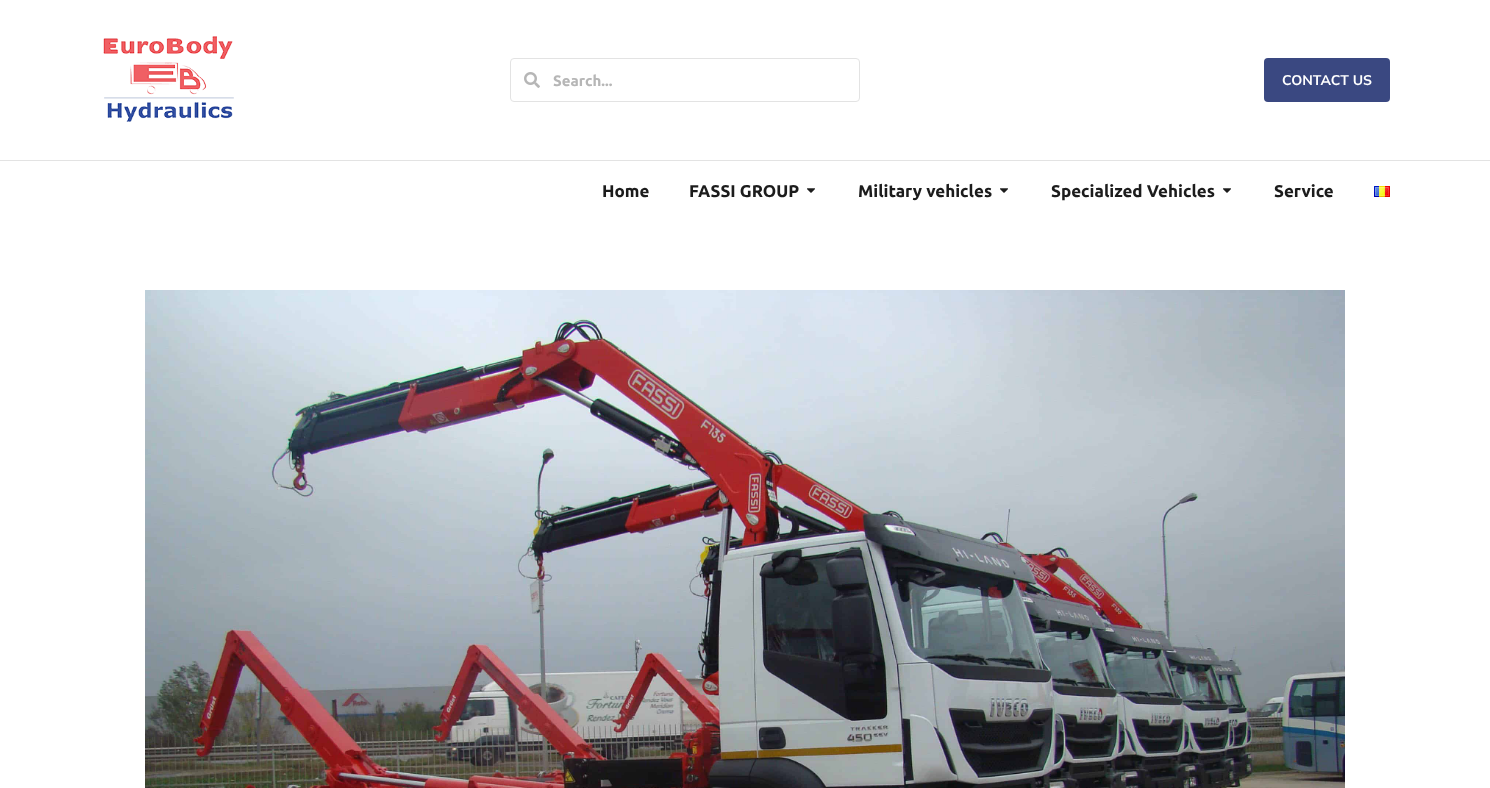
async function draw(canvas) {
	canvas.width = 1490;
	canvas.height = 788;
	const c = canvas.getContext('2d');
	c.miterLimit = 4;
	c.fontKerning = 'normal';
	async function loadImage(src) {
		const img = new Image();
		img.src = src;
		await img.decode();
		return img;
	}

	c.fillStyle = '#fff';
	c.fillRect(0, 0, 1490, 788);
	c.drawImage(await loadImage('img1.png'), 103, 36, 131, 86);
	c.beginPath();
	c.roundRect(510.5, 58.5, 349, 43, 3.5);
	c.strokeStyle = '#e3e3e3';
	c.stroke();
	c.drawImage(await loadImage('img2.png'), 524, 72, 16, 16);
	c.font = 'bold 15px Ubuntu';
	c.fillStyle = '#b6b6b6';
	c.fillText('Search...', 553, 86);
	c.fillStyle = '#3a4881';
	c.beginPath();
	c.roundRect(1264, 58, 126, 44, 4);
	c.fill();
	c.font = 'bold 14px Mulish';
	c.fillStyle = '#fff';
	c.fillText('CONTACT US', 1282, 85);
	c.fillStyle = '#e3e3e3';
	c.fillRect(0, 160, 1490, 1);
	c.font = 'bold 17px Ubuntu';
	c.fillStyle = '#1c1c1c';
	c.fillText('Home', 602, 197);
	c.fillText('FASSI GROUP', 689, 197);
	c.drawImage(await loadImage('img3.png'), 807, 188, 8, 5);
	c.fillText('Military vehicles', 858, 197);
	c.drawImage(await loadImage('img3.png'), 1000, 188, 8, 5);
	c.fillText('Specialized Vehicles', 1051, 197);
	c.drawImage(await loadImage('img3.png'), 1223, 188, 8, 5);
	c.fillText('Service', 1274, 197);
	c.drawImage(await loadImage('img4.png'), 1374, 186, 16, 11);
	c.drawImage(await loadImage('img5.png'), 145, 290, 1200, 498);
}

draw(document.querySelector('canvas'));
